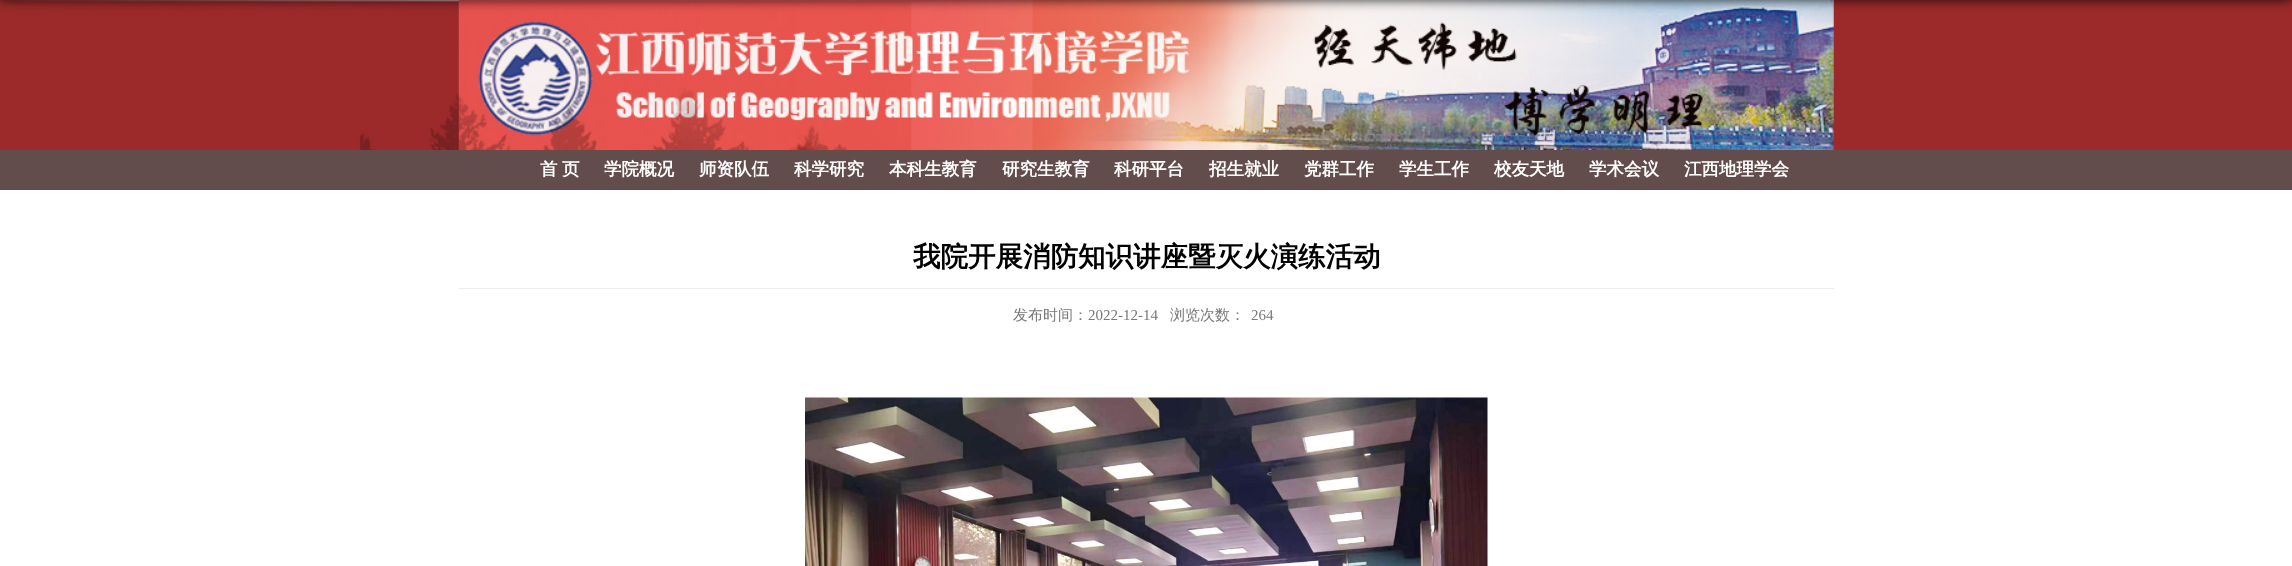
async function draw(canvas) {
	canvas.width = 2292;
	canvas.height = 566;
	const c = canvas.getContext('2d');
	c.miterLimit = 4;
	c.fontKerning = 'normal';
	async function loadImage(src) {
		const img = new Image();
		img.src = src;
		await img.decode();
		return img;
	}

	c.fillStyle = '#fff';
	c.fillRect(0, 0, 2292, 566);
	c.fillStyle = '#9c2a2a';
	c.fillRect(0, 0, 2292, 150);
	c.drawImage(await loadImage('img1.png'), 7, 0, 1829, 150);
	c.fillStyle = '#000000cc';
	c.filter = 'blur(6px)';
	c.beginPath();
	c.rect(0, -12, 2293, 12);
	c.fill();
	c.filter = 'none';
	c.fillStyle = '#624c4c';
	c.fillRect(0, 150, 2292, 40);
	c.font = 'bold 17.5px WenQuanYi Zen Hei';
	c.fillStyle = '#fff';
	for (const [text, x, y] of [
		['首', 540, 175],
		['页', 562, 175],
		['学院概况', 604, 175],
		['师资队伍', 699, 175],
		['科学研究', 794, 175],
		['本科生教育', 889, 175],
		['研究生教育', 1002, 175],
		['科研平台', 1114, 175],
		['招生就业', 1209, 175],
		['党群工作', 1304, 175],
		['学生工作', 1399, 175],
		['校友天地', 1494, 175],
		['学术会议', 1589, 175],
		['江西地理学会', 1684, 175],
	]) {
		c.fillText(text, x, y);
	}
	c.font = 'bold 27.5px WenQuanYi Zen Hei';
	c.fillStyle = '#000';
	c.fillText('我院开展消防知识讲座暨灭火演练活动', 913, 266);
	c.fillStyle = '#ececec';
	c.fillRect(459, 288, 1375, 1);
	c.font = '500 15px WenQuanYi Zen Hei';
	c.fillStyle = '#787878';
	c.fillText('发布时间：', 1013, 320);
	c.font = '15px Liberation Serif';
	c.fillText('2022-12-14', 1088, 320);
	c.font = '500 15px WenQuanYi Zen Hei';
	c.fillText('浏览次数：', 1170, 320);
	c.font = '15px Liberation Serif';
	c.fillText('264', 1251, 320);
	c.drawImage(await loadImage('img2.png'), 805, 397, 683, 169);
}

draw(document.querySelector('canvas'));
